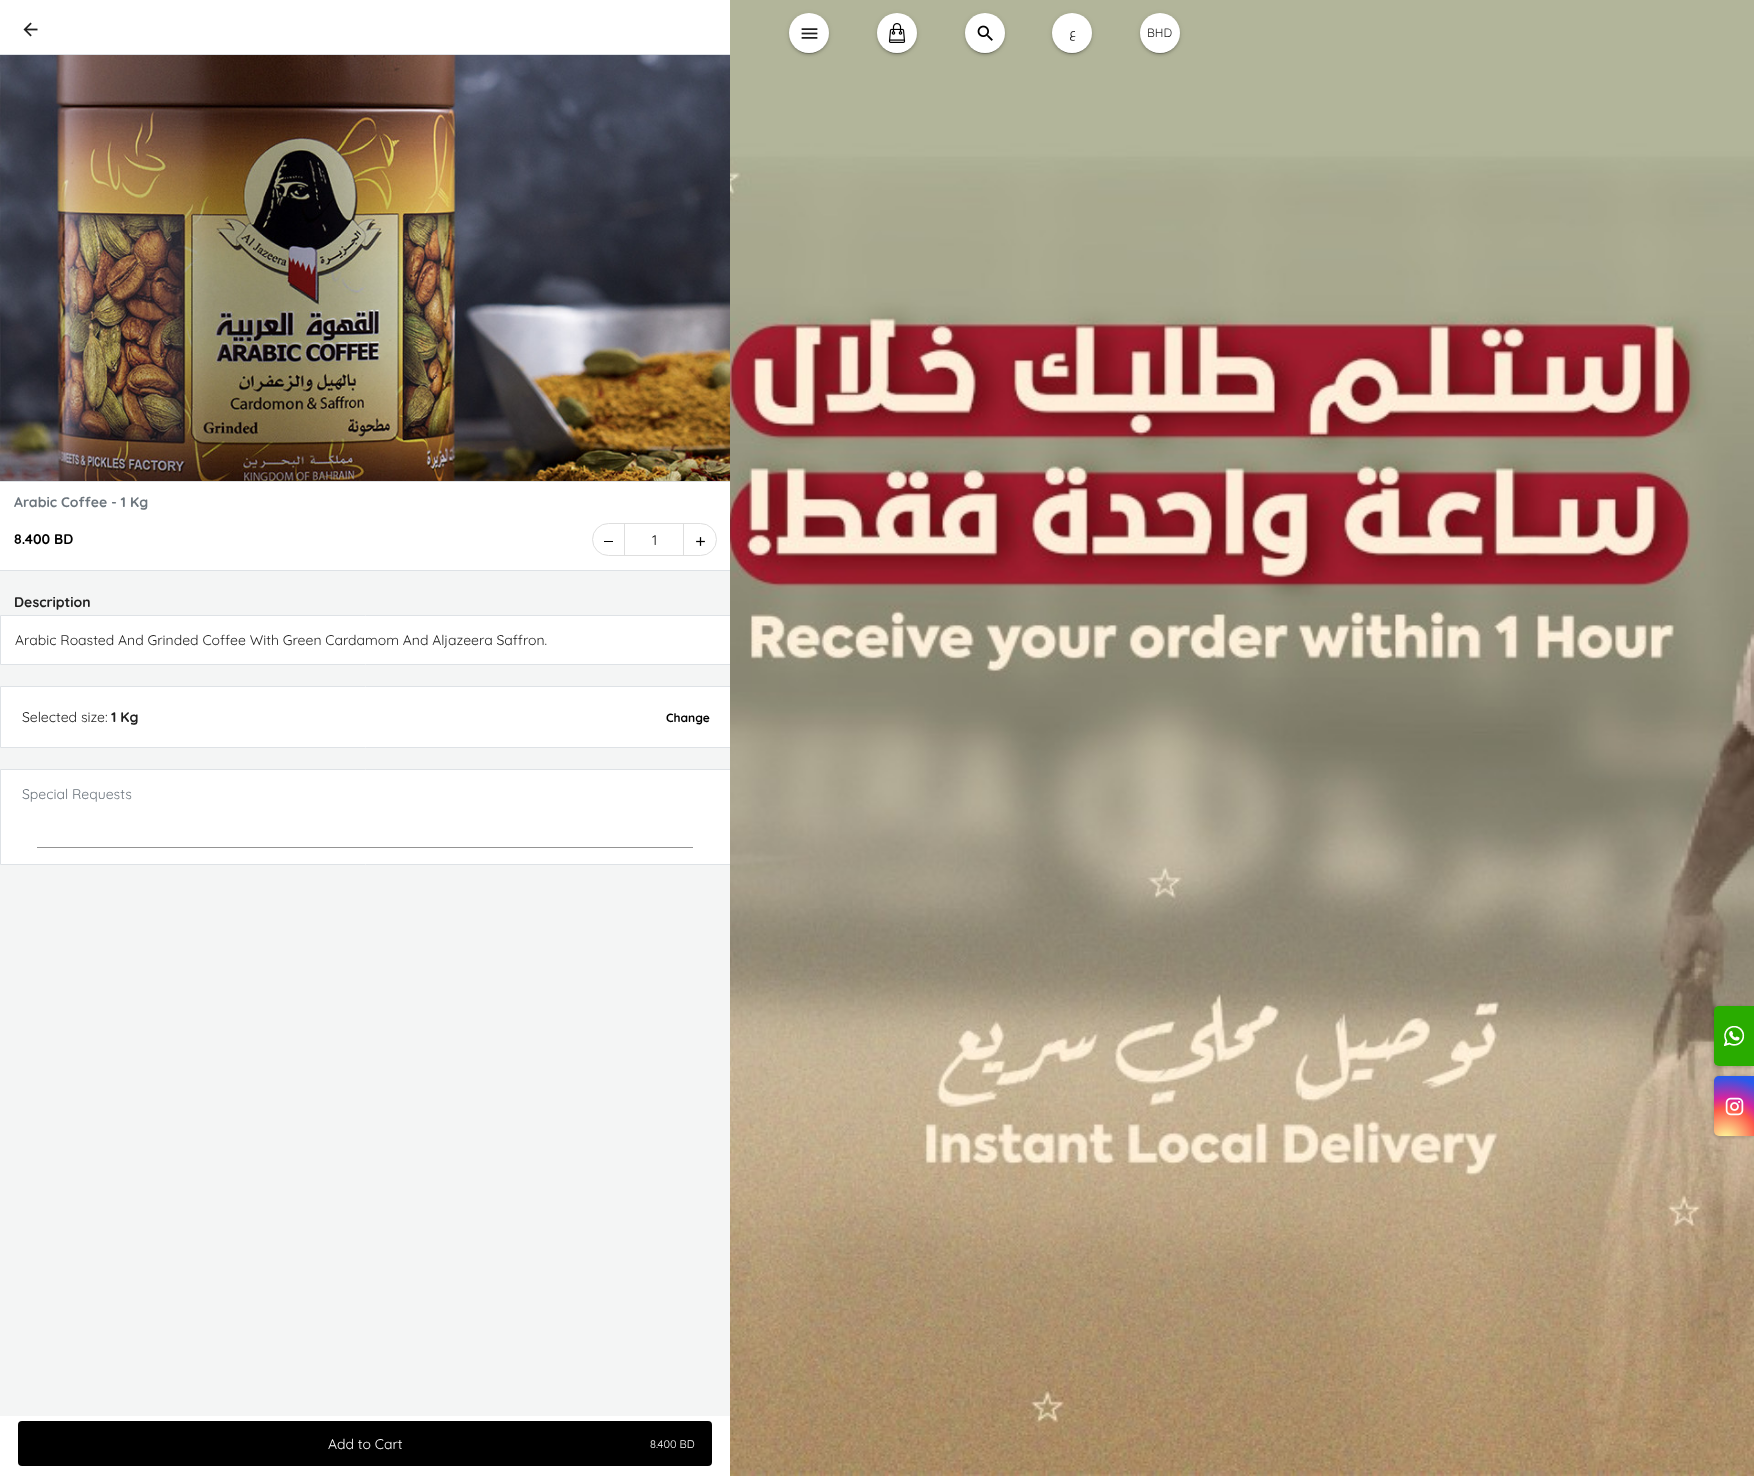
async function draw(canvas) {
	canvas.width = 1754;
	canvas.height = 1476;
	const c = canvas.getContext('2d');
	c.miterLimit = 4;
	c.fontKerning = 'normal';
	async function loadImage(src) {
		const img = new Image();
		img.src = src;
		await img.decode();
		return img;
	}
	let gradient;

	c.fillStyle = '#f4f5f5';
	c.fillRect(0, 0, 1754, 1476);
	c.fillStyle = '#dee2e6';
	c.fillRect(0, 481, 731, 1);
	c.fillRect(0, 570, 731, 1);
	c.fillStyle = '#fff';
	c.beginPath();
	c.rect(0.5, 615.5, 730, 49);
	c.fill();
	c.strokeStyle = '#dee2e6';
	c.stroke();
	c.beginPath();
	c.rect(0.5, 686.5, 730, 61);
	c.fill();
	c.stroke();
	c.beginPath();
	c.rect(0.5, 769.5, 730, 95);
	c.fill();
	c.stroke();
	c.drawImage(await loadImage('img1.png'), 730, 0, 1024, 1476);
	c.fillStyle = '#0000001f';
	c.filter = 'blur(2.5px)';
	c.beginPath();
	c.roundRect(789, 14, 40, 40, 20);
	c.fill();
	c.filter = 'none';
	c.fillStyle = '#00000024';
	c.filter = 'blur(1px)';
	c.beginPath();
	c.roundRect(789, 15, 40, 40, 20);
	c.fill();
	c.filter = 'none';
	c.fillStyle = '#00000033';
	c.filter = 'blur(0.5px)';
	c.beginPath();
	c.roundRect(791, 18, 36, 36, 18);
	c.fill();
	c.filter = 'none';
	c.fillStyle = '#fff';
	c.beginPath();
	c.arc(809, 33, 20, 0, 2 * Math.PI);
	c.fill();
	c.drawImage(await loadImage('img2.png'), 801, 28, 17, 11);
	c.fillStyle = '#0000001f';
	c.filter = 'blur(2.5px)';
	c.beginPath();
	c.roundRect(877, 14, 40, 40, 20);
	c.fill();
	c.filter = 'none';
	c.fillStyle = '#00000024';
	c.filter = 'blur(1px)';
	c.beginPath();
	c.roundRect(877, 15, 40, 40, 20);
	c.fill();
	c.filter = 'none';
	c.fillStyle = '#00000033';
	c.filter = 'blur(0.5px)';
	c.beginPath();
	c.roundRect(879, 18, 36, 36, 18);
	c.fill();
	c.filter = 'none';
	c.fillStyle = '#fff';
	c.beginPath();
	c.arc(897, 33, 20, 0, 2 * Math.PI);
	c.fill();
	c.drawImage(await loadImage('img3.png'), 888, 23, 18, 20);
	c.fillStyle = '#0000001f';
	c.filter = 'blur(2.5px)';
	c.beginPath();
	c.roundRect(965, 14, 40, 40, 20);
	c.fill();
	c.filter = 'none';
	c.fillStyle = '#00000024';
	c.filter = 'blur(1px)';
	c.beginPath();
	c.roundRect(965, 15, 40, 40, 20);
	c.fill();
	c.filter = 'none';
	c.fillStyle = '#00000033';
	c.filter = 'blur(0.5px)';
	c.beginPath();
	c.roundRect(967, 18, 36, 36, 18);
	c.fill();
	c.filter = 'none';
	c.fillStyle = '#fff';
	c.beginPath();
	c.arc(985, 33, 20, 0, 2 * Math.PI);
	c.fill();
	c.drawImage(await loadImage('img4.png'), 977, 25, 16, 16);
	c.fillStyle = '#0000001f';
	c.filter = 'blur(2.5px)';
	c.beginPath();
	c.roundRect(1052, 14, 40, 40, 20);
	c.fill();
	c.filter = 'none';
	c.fillStyle = '#00000024';
	c.filter = 'blur(1px)';
	c.beginPath();
	c.roundRect(1052, 15, 40, 40, 20);
	c.fill();
	c.filter = 'none';
	c.fillStyle = '#00000033';
	c.filter = 'blur(0.5px)';
	c.beginPath();
	c.roundRect(1054, 18, 36, 36, 18);
	c.fill();
	c.filter = 'none';
	c.fillStyle = '#fff';
	c.beginPath();
	c.arc(1072, 33, 20, 0, 2 * Math.PI);
	c.fill();
	c.direction = 'rtl';
	c.font = '12px Cairo';
	c.fillStyle = '#202020';
	c.fillText('ع', 1076, 37);
	c.fillStyle = '#0000001f';
	c.filter = 'blur(2.5px)';
	c.beginPath();
	c.roundRect(1140, 14, 40, 40, 20);
	c.fill();
	c.filter = 'none';
	c.fillStyle = '#00000024';
	c.filter = 'blur(1px)';
	c.beginPath();
	c.roundRect(1140, 15, 40, 40, 20);
	c.fill();
	c.filter = 'none';
	c.fillStyle = '#00000033';
	c.filter = 'blur(0.5px)';
	c.beginPath();
	c.roundRect(1142, 18, 36, 36, 18);
	c.fill();
	c.filter = 'none';
	c.fillStyle = '#fff';
	c.beginPath();
	c.arc(1160, 33, 20, 0, 2 * Math.PI);
	c.fill();
	c.direction = 'ltr';
	c.font = '300 12px Quicksand';
	c.fillStyle = '#202020';
	c.fillText('BHD', 1147, 37);
	c.fillStyle = '#fff';
	c.fillRect(0, 0, 730, 54);
	c.fillStyle = '#dee2e6';
	c.fillRect(0, 54, 730, 1);
	c.drawImage(await loadImage('img5.png'), 23, 22, 15, 15);
	c.drawImage(await loadImage('img6.png'), 0, 55, 730, 426);
	c.fillStyle = '#fff';
	c.fillRect(0, 482, 730, 88);
	c.font = '300 14px "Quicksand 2"';
	c.fillStyle = '#6c757d';
	c.fillText('Arabic Coffee - 1 Kg', 14, 507);
	c.fillStyle = '#000';
	c.fillText('8.400 BD', 14, 544);
	c.beginPath();
	c.roundRect(592.5, 523.5, 124, 32, 16);
	c.strokeStyle = '#dedede';
	c.stroke();
	for (const [x, y, w, h, color] of [
		[604, 541, 9, 1, '#000'],
		[683, 524, 1, 32, '#dedede'],
		[624, 524, 1, 32, '#dedede'],
	]) {
		c.fillStyle = color;
		c.fillRect(x, y, w, h);
	}
	c.font = '300 14px Quicksand';
	c.fillStyle = '#000';
	c.fillText('1', 652, 545);
	c.drawImage(await loadImage('img7.png'), 696, 537, 9, 9);
	c.font = '300 14px "Quicksand 2"';
	c.fillStyle = '#202020';
	c.fillText('Description', 14, 607);
	c.font = '300 14px Quicksand';
	c.fillText('Arabic Roasted And Grinded Coffee With Green Cardamom And Aljazeera Saffron.', 15, 645);
	c.fillText('Selected size:', 22, 722);
	c.font = '300 14px "Quicksand 2"';
	c.fillText('1 Kg', 111, 722);
	c.font = '300 12px "Quicksand 2"';
	c.fillStyle = '#000';
	c.fillText('Change', 666, 722);
	c.font = '300 14px Quicksand';
	c.fillStyle = '#6c757d';
	c.fillText('Special Requests', 22, 799);
	c.fillStyle = '#949494';
	c.fillRect(37, 847, 656, 1);
	c.fillStyle = '#fff';
	c.fillRect(0, 1416, 730, 60);
	c.fillStyle = '#000';
	c.beginPath();
	c.roundRect(18, 1421, 694, 45, 4);
	c.fill();
	c.fillStyle = '#fff';
	c.fillText('Add to Cart', 328, 1449);
	c.font = '300 11px Quicksand';
	c.fillText('8.400 BD', 650, 1448);
	c.fillStyle = '#00000026';
	c.filter = 'blur(1.5px)';
	c.beginPath();
	c.roundRect(1713, 1006, 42, 62, 6);
	c.fill();
	c.filter = 'none';
	c.fillStyle = '#29ac00';
	c.beginPath();
	c.roundRect(1714, 1006, 40, 60, [5, 0, 0, 5]);
	c.fill();
	c.drawImage(await loadImage('img8.png'), 1714, 1007, 31, 58);
	c.fillStyle = '#00000026';
	c.filter = 'blur(1.5px)';
	c.beginPath();
	c.roundRect(1713, 1076, 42, 62, 6);
	c.fill();
	c.filter = 'none';
	gradient = c.createRadialGradient(1726, 1140, 0, 1726, 1140, 70);
	gradient.addColorStop(0, '#fdf497');
	gradient.addColorStop(0.05, '#fdf497');
	gradient.addColorStop(0.45, '#fd5949');
	gradient.addColorStop(0.6, '#d6249f');
	gradient.addColorStop(0.9, '#285aeb');
	c.fillStyle = gradient;
	c.beginPath();
	c.roundRect(1714, 1076, 40, 60, [5, 0, 0, 5]);
	c.fill();
	c.drawImage(await loadImage('img9.png'), 1725, 1097, 19, 19);
}

draw(document.querySelector('canvas'));
